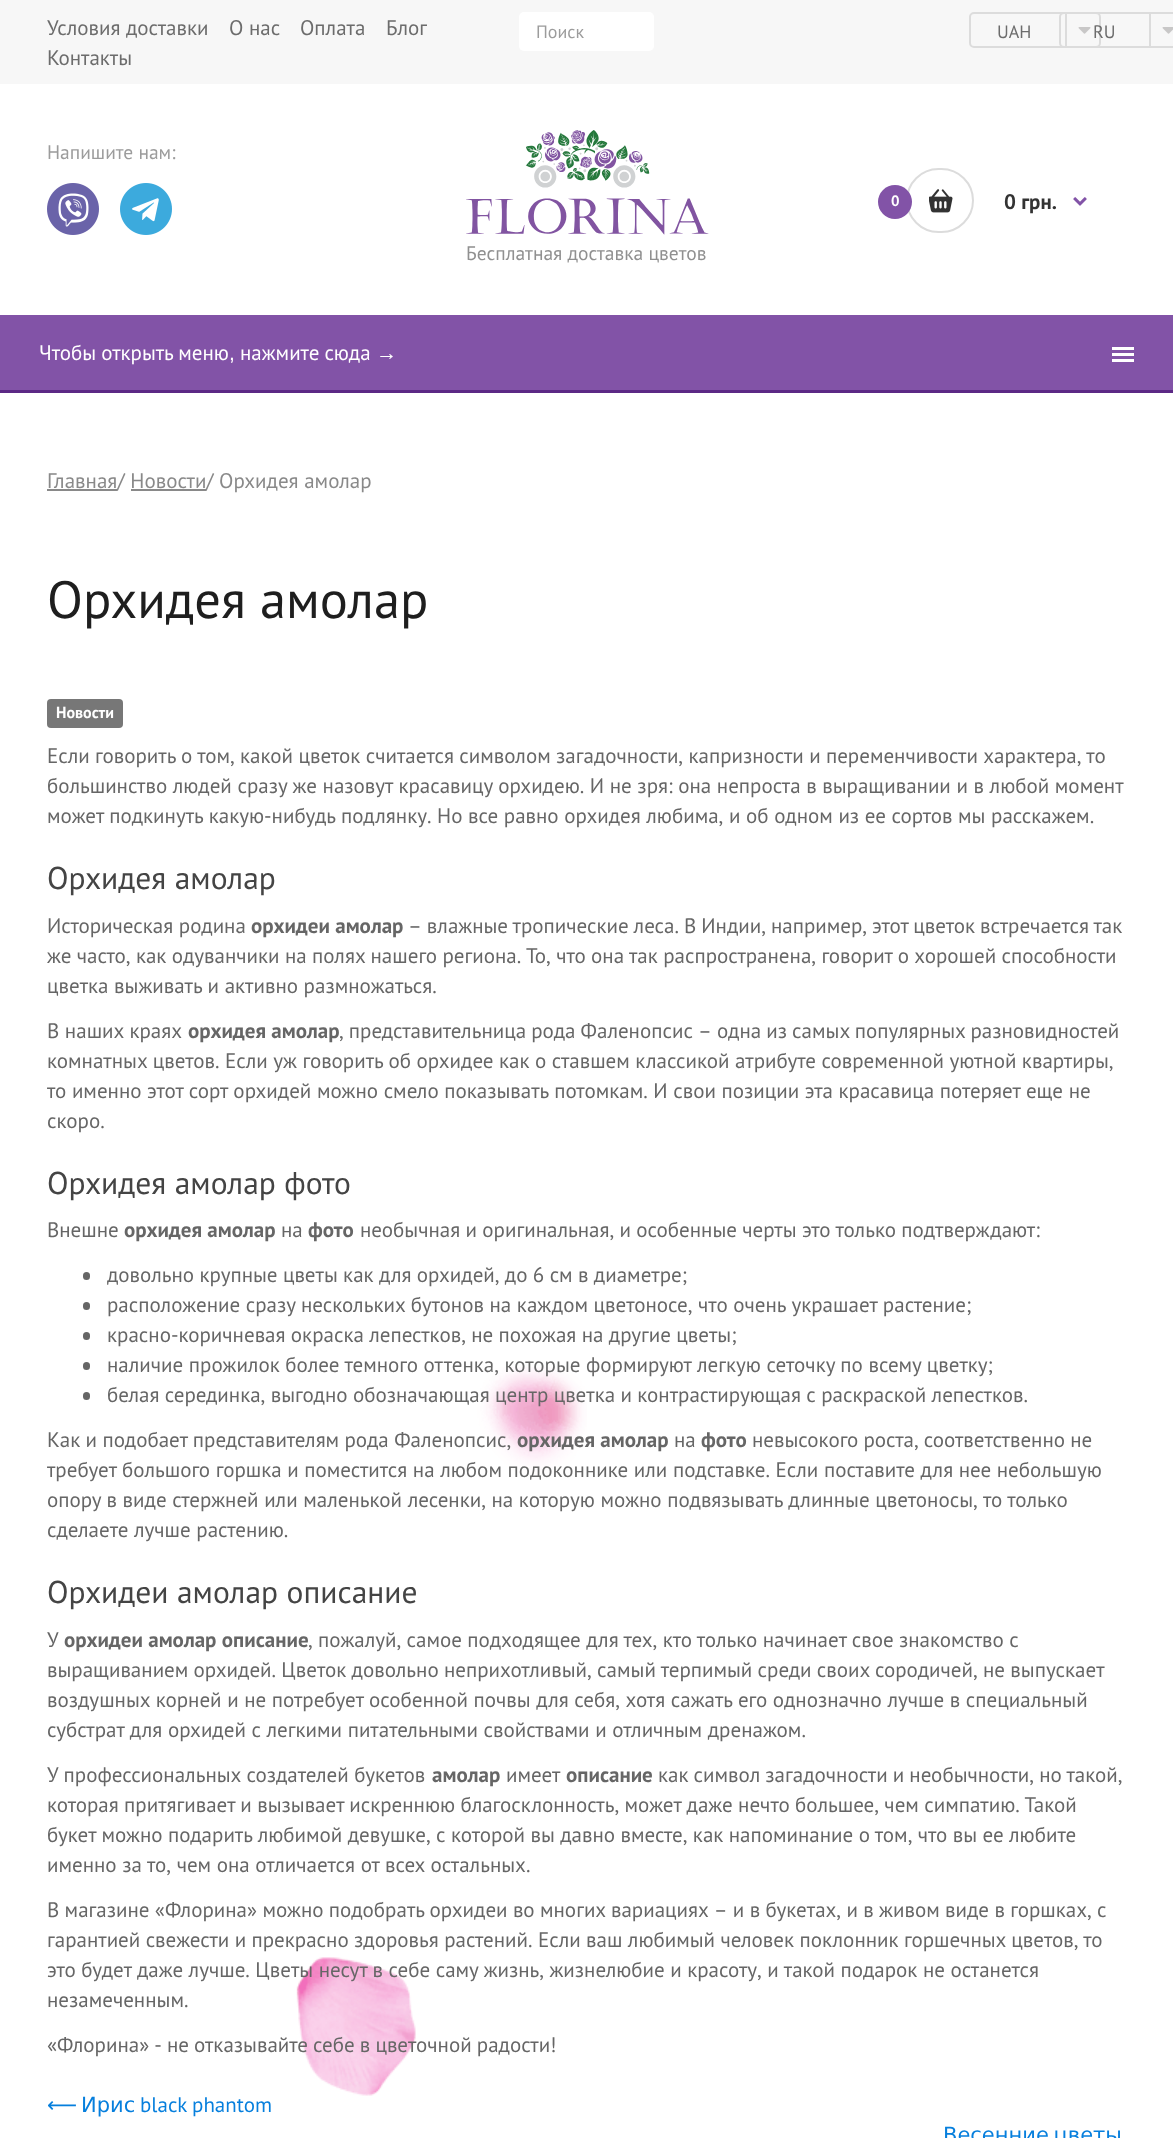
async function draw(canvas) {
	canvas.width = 1173;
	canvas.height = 2138;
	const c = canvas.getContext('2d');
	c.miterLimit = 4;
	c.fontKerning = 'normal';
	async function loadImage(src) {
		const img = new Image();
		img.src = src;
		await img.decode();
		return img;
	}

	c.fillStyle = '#fff';
	c.fillRect(0, 0, 1173, 2138);
	c.drawImage(await loadImage('img1.png'), 296, 1367, 291, 729);
	c.fillStyle = '#f7f7f7';
	c.fillRect(0, 0, 1173, 84);
	c.font = '21px PT Sans';
	c.fillStyle = '#6c6c6c';
	for (const [text, x, y] of [
		['Условия доставки', 47, 35],
		['О нас', 229, 35],
		['Оплата', 300, 35],
		['Блог', 386, 35],
		['Контакты', 47, 65],
	]) {
		c.fillText(text, x, y);
	}
	c.fillStyle = '#fff';
	c.beginPath();
	c.roundRect(519, 12, 135, 39, 5);
	c.fill();
	c.font = '18px PT Sans';
	c.fillStyle = '#9c9c9c';
	c.fillText('Поиск', 536, 38);
	c.beginPath();
	c.roundRect(970, 13, 130, 34, 4);
	c.strokeStyle = '#dcdcdc';
	c.lineWidth = 2;
	c.stroke();
	c.fillStyle = '#6c6c6c';
	c.fillText('UAH', 997, 38);
	c.fillStyle = '#dcdcdc';
	c.fillRect(1065, 14, 2, 33);
	c.drawImage(await loadImage('img2.png'), 1078, 27, 13, 7);
	c.beginPath();
	c.roundRect(1060, 13, 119, 34, 4);
	c.stroke();
	c.fillStyle = '#6c6c6c';
	c.fillText('RU', 1093, 38);
	c.fillStyle = '#dcdcdc';
	c.fillRect(1149, 14, 2, 33);
	c.drawImage(await loadImage('img3.png'), 1162, 27, 11, 7);
	c.font = '19.5px PT Sans';
	c.fillStyle = '#9c9c9c';
	c.fillText('Напишите нам:', 47, 159);
	c.drawImage(await loadImage('img4.png'), 47, 183, 52, 52);
	c.drawImage(await loadImage('img5.png'), 120, 183, 52, 52);
	c.beginPath();
	c.roundRect(907, 169, 66, 63, 31.5);
	c.stroke();
	c.fillStyle = '#8253a7';
	c.beginPath();
	c.arc(895, 202, 17, 0, 2 * Math.PI);
	c.fill();
	c.font = 'bold 15px PT Sans';
	c.fillStyle = '#fff';
	c.fillText('0', 891, 206);
	c.drawImage(await loadImage('img6.png'), 929, 189, 24, 24);
	c.font = 'bold 21px PT Sans';
	c.fillStyle = '#333';
	c.fillText('0 грн.', 1004, 209);
	c.drawImage(await loadImage('img7.png'), 1073, 197, 14, 9);
	c.drawImage(await loadImage('img8.png'), 466, 130, 243, 105);
	c.font = '19.5px PT Sans';
	c.fillStyle = '#909090';
	c.fillText('Бесплатная доставка цветов', 466, 260);
	c.fillStyle = '#8253a7';
	c.fillRect(0, 315, 1173, 75);
	c.fillStyle = '#5c2985';
	c.fillRect(0, 390, 1173, 3);
	c.wordSpacing = '-0.5px';
	c.font = '21px PT Sans';
	c.fillStyle = '#fff';
	c.fillText('Чтобы открыть меню', 39, 360);
	c.fillText('нажмите сюда', 240, 360);
	c.wordSpacing = '0px';
	c.font = '21px Liberation Sans';
	c.fillText('→', 376, 360);
	for (const [x, y, w, h, color] of [
		[1112, 347, 22, 3, '#fff'],
		[1112, 353, 22, 3, '#fff'],
		[1112, 359, 22, 3, '#fff'],
	]) {
		c.fillStyle = color;
		c.fillRect(x, y, w, h);
	}
	c.fillText(',', 229, 360);
	c.fillStyle = '#898989';
	c.fillRect(47, 489, 70, 2);
	c.font = '21px PT Sans';
	c.fillText('Главная/ Новости', 47, 488);
	c.fillRect(131, 489, 75, 2);
	c.fillText('/ Орхидея амолар', 206, 488);
	c.font = '52.5px PT Sans';
	c.fillStyle = '#1e1e1e';
	c.fillText('Орхидея амолар', 47, 618);
	c.fillStyle = '#777';
	c.beginPath();
	c.roundRect(47, 699, 76, 29, 4);
	c.fill();
	c.font = 'bold 16px PT Sans';
	c.fillStyle = '#fff';
	c.fillText('Новости', 56, 718);
	c.wordSpacing = '-0.25px';
	c.font = '21px PT Sans';
	c.fillStyle = '#666';
	c.fillText('Если говорить о том, какой цветок считается символом загадочности, капризности и переменчивости характера, то', 47, 763);
	c.wordSpacing = '0px';
	c.fillText('большинство людей сразу же назовут красавицу орхидею. И не зря: она непроста в выращивании и в любой момент', 47, 793);
	c.fillText('может подкинуть какую-нибудь подлянку. Но все равно орхидея любима, и об одном из ее сортов мы расскажем.', 47, 823);
	c.font = '31.5px PT Sans';
	c.fillStyle = '#444';
	c.fillText('Орхидея амолар', 47, 889);
	c.font = '21px PT Sans';
	c.fillStyle = '#666';
	c.fillText('Историческая родина', 47, 933);
	c.font = 'bold 21px PT Sans';
	c.fillText('орхидеи амолар', 251, 933);
	c.wordSpacing = '-0.6px';
	c.font = '21px PT Sans';
	c.fillText('– влажные тропические леса. В Индии, например, этот цветок встречается так', 408, 933);
	c.wordSpacing = '-0.25px';
	c.fillText('же часто, как одуванчики на полях нашего региона. То, что она так распространена, говорит о хорошей способности', 47, 963);
	c.wordSpacing = '0px';
	c.fillText('цветка выживать и активно размножаться.', 47, 993);
	c.fillText('В наших краях', 47, 1038);
	c.font = 'bold 21px PT Sans';
	c.fillText('орхидея амолар', 188, 1038);
	c.wordSpacing = '-0.5px';
	c.font = '21px PT Sans';
	c.fillText(', представительница рода Фаленопсис – одна из самых популярных разновидностей', 339, 1038);
	c.wordSpacing = '-0.1px';
	c.fillText('комнатных цветов. Если уж говорить об орхидее как о ставшем классикой атрибуте современной уютной квартиры,', 47, 1068);
	c.wordSpacing = '0px';
	c.fillText('то именно этот сорт орхидей можно смело показывать потомкам. И свои позиции эта красавица потеряет еще не', 47, 1098);
	c.fillText('скоро.', 47, 1128);
	c.font = '31.5px PT Sans';
	c.fillStyle = '#444';
	c.fillText('Орхидея амолар фото', 47, 1194);
	c.font = '21px PT Sans';
	c.fillStyle = '#666';
	c.fillText('Внешне', 47, 1237);
	c.font = 'bold 21px PT Sans';
	c.fillText('орхидея амолар', 124, 1237);
	c.font = '21px PT Sans';
	c.fillText('на', 281, 1237);
	c.font = 'bold 21px PT Sans';
	c.fillText('фото', 308, 1237);
	c.wordSpacing = '-0.25px';
	c.font = '21px PT Sans';
	c.fillText('необычная и оригинальная, и особенные черты это только подтверждают:', 360, 1237);
	c.beginPath();
	c.roundRect(83, 1272, 7, 8, 3.5);
	c.fill();
	c.fillText('довольно крупные цветы как для орхидей, до 6 см в диаметре;', 107, 1282);
	c.beginPath();
	c.roundRect(83, 1302, 7, 8, 3.5);
	c.fill();
	c.wordSpacing = '0px';
	c.fillText('расположение сразу нескольких бутонов на каждом цветоносе, что очень украшает растение;', 107, 1312);
	c.beginPath();
	c.roundRect(83, 1332, 7, 8, 3.5);
	c.fill();
	c.wordSpacing = '-0.25px';
	c.fillText('красно-коричневая окраска лепестков, не похожая на другие цветы;', 107, 1342);
	c.beginPath();
	c.roundRect(83, 1362, 7, 8, 3.5);
	c.fill();
	c.wordSpacing = '0px';
	c.fillText('наличие прожилок более темного оттенка, которые формируют легкую сеточку по всему цветку;', 107, 1372);
	c.beginPath();
	c.roundRect(83, 1392, 7, 8, 3.5);
	c.fill();
	c.wordSpacing = '-0.25px';
	c.fillText('белая серединка, выгодно обозначающая центр цветка и контрастирующая с раскраской лепестков.', 107, 1402);
	c.fillText('Как и подобает представителям рода Фаленопсис,', 47, 1447);
	c.wordSpacing = '0px';
	c.font = 'bold 21px PT Sans';
	c.fillText('орхидея амолар', 517, 1447);
	c.font = '21px PT Sans';
	c.fillText('на', 674, 1447);
	c.font = 'bold 21px PT Sans';
	c.fillText('фото', 701, 1447);
	c.wordSpacing = '-0.5px';
	c.font = '21px PT Sans';
	c.fillText('невысокого роста, соответственно не', 752, 1447);
	c.wordSpacing = '0px';
	for (const [text, x, y] of [
		['требует большого горшка и поместится на любом подоконнике или подставке. Если поставите для нее небольшую', 47, 1477],
		['опору в виде стержней или маленькой лесенки, на которую можно подвязывать длинные цветоносы, то только', 47, 1507],
		['сделаете лучше растению.', 47, 1537],
	]) {
		c.fillText(text, x, y);
	}
	c.font = '31.5px PT Sans';
	c.fillStyle = '#444';
	c.fillText('Орхидеи амолар описание', 47, 1603);
	c.font = '21px PT Sans';
	c.fillStyle = '#666';
	c.fillText('У', 47, 1647);
	c.font = 'bold 21px PT Sans';
	c.fillText('орхидеи амолар описание', 64, 1647);
	c.wordSpacing = '-0.25px';
	c.font = '21px PT Sans';
	c.fillText(', пожалуй, самое подходящее для тех, кто только начинает свое знакомство с', 308, 1647);
	c.wordSpacing = '-0.3px';
	c.fillText('выращиванием орхидей. Цветок довольно неприхотливый, самый терпимый среди своих сородичей, не выпускает', 47, 1677);
	c.wordSpacing = '0px';
	for (const [text, x, y] of [
		['воздушных корней и не потребует особенной почвы для себя, хотя сажать его однозначно лучше в специальный', 47, 1707],
		['субстрат для орхидей с легкими питательными свойствами и отличным дренажом.', 47, 1737],
		['У профессиональных создателей букетов', 47, 1782],
	]) {
		c.fillText(text, x, y);
	}
	c.font = 'bold 21px PT Sans';
	c.fillText('амолар', 432, 1782);
	c.font = '21px PT Sans';
	c.fillText('имеет', 506, 1782);
	c.font = 'bold 21px PT Sans';
	c.fillText('описание', 566, 1782);
	c.wordSpacing = '-0.5px';
	c.font = '21px PT Sans';
	c.fillText('как символ загадочности и необычности, но такой,', 658, 1782);
	c.wordSpacing = '-0.25px';
	c.fillText('которая притягивает и вызывает искреннюю благосклонность, может даже нечто большее, чем симпатию. Такой', 47, 1812);
	c.wordSpacing = '-0.2px';
	c.fillText('букет можно подарить любимой девушке, с которой вы давно вместе, как напоминание о том, что вы ее любите', 47, 1842);
	c.wordSpacing = '0px';
	c.fillText('именно за то, чем она отличается от всех остальных.', 47, 1872);
	c.wordSpacing = '-0.25px';
	c.fillText('В магазине «Флорина» можно подобрать орхидеи во многих вариациях – и в букетах, и в живом виде в горшках, с', 47, 1917);
	c.wordSpacing = '-0.2px';
	c.fillText('гарантией свежести и прекрасно здоровья растений. Если ваш любимый человек поклонник горшечных цветов, то', 47, 1947);
	c.wordSpacing = '-0.1px';
	c.fillText('это будет даже лучше. Цветы несут в себе саму жизнь, жизнелюбие и красоту, и такой подарок не останется', 47, 1977);
	c.wordSpacing = '0px';
	c.fillText('незамеченным.', 47, 2007);
	c.wordSpacing = '-0.5px';
	c.fillText('«Флорина» - не отказывайте себе в цветочной радости!', 47, 2052);
	c.wordSpacing = '0px';
	c.font = '21px DejaVu Sans';
	c.fillStyle = '#067fdd';
	c.fillText('⟵', 47, 2112);
	c.fillText('Ирис', 81, 2112);
	c.wordSpacing = '-1px';
	c.font = '21px PT Sans';
	c.fillText('black phantom', 140, 2112);
	c.wordSpacing = '-2px';
	c.font = '21px DejaVu Sans';
	c.fillText('Весенние цветы', 943, 2142);
}

draw(document.querySelector('canvas'));
